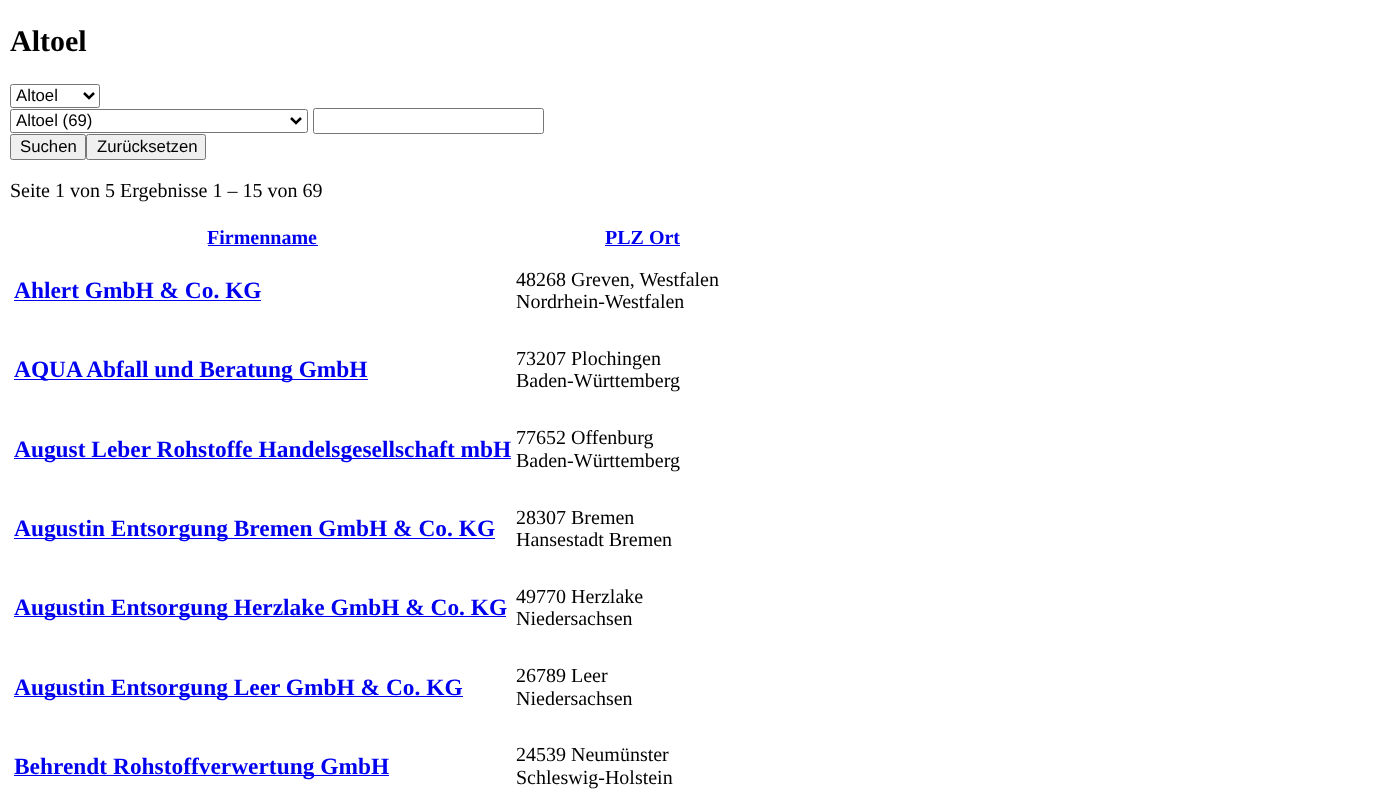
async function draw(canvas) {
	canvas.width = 1392;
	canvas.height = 810;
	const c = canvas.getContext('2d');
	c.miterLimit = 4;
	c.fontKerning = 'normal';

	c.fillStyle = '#fff';
	c.fillRect(0, 0, 1392, 810);
	c.font = 'bold 30px Liberation Serif';
	c.fillStyle = '#000';
	c.fillText('Altoel', 10, 51);
	c.beginPath();
	c.roundRect(10.5, 84.5, 89, 23, 2);
	c.strokeStyle = '#767676';
	c.stroke();
	c.beginPath();
	c.moveTo(84, 93);
	c.lineTo(89, 98);
	c.lineTo(94, 93);
	c.strokeStyle = '#000';
	c.lineWidth = 2.5;
	c.stroke();
	c.font = '16.75px Liberation Sans';
	c.fillText('Altoel', 16, 101);
	c.beginPath();
	c.roundRect(10.5, 109.5, 297, 23, 2);
	c.strokeStyle = '#767676';
	c.lineWidth = 1;
	c.stroke();
	c.beginPath();
	c.moveTo(291, 118);
	c.lineTo(296, 123);
	c.lineTo(301, 118);
	c.strokeStyle = '#000';
	c.lineWidth = 2.5;
	c.stroke();
	c.fillText('Altoel (69)', 16, 126);
	c.beginPath();
	c.roundRect(313.5, 108.5, 230, 25, 2);
	c.strokeStyle = '#767676';
	c.lineWidth = 1;
	c.stroke();
	c.fillStyle = '#efefef';
	c.beginPath();
	c.roundRect(10.5, 134.5, 75, 25, 2);
	c.fill();
	c.stroke();
	c.fillStyle = '#000';
	c.fillText('Suchen', 20, 152);
	c.fillStyle = '#efefef';
	c.beginPath();
	c.roundRect(86.5, 134.5, 119, 25, 2);
	c.fill();
	c.stroke();
	c.fillStyle = '#000';
	c.fillText('Zurücksetzen', 97, 152);
	c.font = '20px Liberation Serif';
	c.fillText('Seite 1 von 5 Ergebnisse 1 – 15 von 69', 10, 197);
	c.font = 'bold 20px Liberation Serif';
	c.fillStyle = '#00e';
	c.fillText('Firmenname', 207, 244);
	c.fillRect(208, 245, 110, 1);
	c.fillText('PLZ Ort', 605, 244);
	c.fillRect(605, 245, 75, 1);
	c.font = 'bold 23.4px Liberation Serif';
	c.fillText('Ahlert GmbH & Co. KG', 14, 298);
	c.fillRect(14, 300, 247, 1);
	c.font = '20px Liberation Serif';
	c.fillStyle = '#000';
	c.fillText('48268 Greven, Westfalen', 516, 286);
	c.fillText('Nordrhein-Westfalen', 516, 308);
	c.fillStyle = '#00e';
	c.fillRect(14, 379, 354, 1);
	c.font = 'bold 23.4px Liberation Serif';
	c.fillText('AQUA Abfall und Beratung GmbH', 14, 377);
	c.font = '20px Liberation Serif';
	c.fillStyle = '#000';
	c.fillText('73207 Plochingen', 516, 365);
	c.fillText('Baden-Württemberg', 516, 387);
	c.fillStyle = '#00e';
	c.fillRect(14, 458, 497, 1);
	c.font = 'bold 23.4px Liberation Serif';
	c.fillText('August Leber Rohstoffe Handelsgesellschaft mbH', 14, 457);
	c.font = '20px Liberation Serif';
	c.fillStyle = '#000';
	c.fillText('77652 Offenburg', 516, 444);
	c.fillText('Baden-Württemberg', 516, 467);
	c.fillStyle = '#00e';
	c.fillRect(14, 538, 481, 1);
	c.font = 'bold 23.4px Liberation Serif';
	c.fillText('Augustin Entsorgung Bremen GmbH & Co. KG', 14, 536);
	c.font = '20px Liberation Serif';
	c.fillStyle = '#000';
	c.fillText('28307 Bremen', 516, 524);
	c.fillText('Hansestadt Bremen', 516, 546);
	c.fillStyle = '#00e';
	c.fillRect(14, 616, 492, 1);
	c.font = 'bold 23.4px Liberation Serif';
	c.fillText('Augustin Entsorgung Herzlake GmbH & Co. KG', 14, 615);
	c.font = '20px Liberation Serif';
	c.fillStyle = '#000';
	c.fillText('49770 Herzlake', 516, 603);
	c.fillText('Niedersachsen', 516, 625);
	c.fillStyle = '#00e';
	c.fillRect(14, 696, 449, 1);
	c.font = 'bold 23.4px Liberation Serif';
	c.fillText('Augustin Entsorgung Leer GmbH & Co. KG', 14, 695);
	c.font = '20px Liberation Serif';
	c.fillStyle = '#000';
	c.fillText('26789 Leer', 516, 682);
	c.fillText('Niedersachsen', 516, 705);
	c.fillStyle = '#00e';
	c.fillRect(14, 775, 375, 1);
	c.font = 'bold 23.4px Liberation Serif';
	c.fillText('Behrendt Rohstoffverwertung GmbH', 14, 774);
	c.font = '20px Liberation Serif';
	c.fillStyle = '#000';
	c.fillText('24539 Neumünster', 516, 761);
	c.fillText('Schleswig-Holstein', 516, 784);
}

draw(document.querySelector('canvas'));
